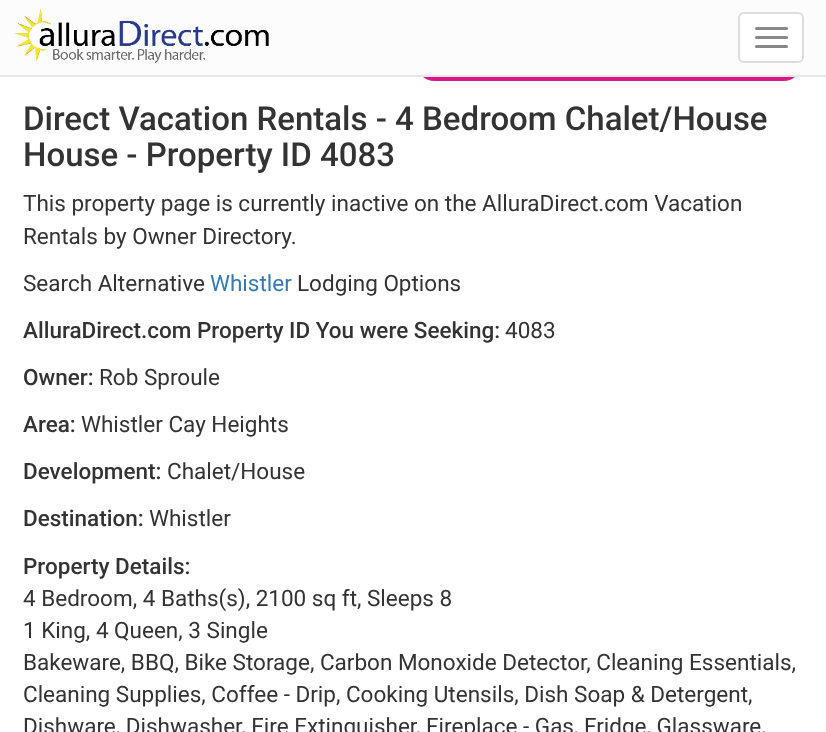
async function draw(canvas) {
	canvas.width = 826;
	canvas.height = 732;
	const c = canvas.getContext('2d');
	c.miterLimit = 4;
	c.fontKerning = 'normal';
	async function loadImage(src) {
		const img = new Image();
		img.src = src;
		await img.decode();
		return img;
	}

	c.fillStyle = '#fff';
	c.fillRect(0, 0, 826, 732);
	c.fillStyle = '#da1884';
	c.beginPath();
	c.roundRect(414, 33, 390, 48, 21);
	c.fill();
	c.fillStyle = '#fcfcfc';
	c.fillRect(0, 0, 826, 75);
	c.fillStyle = '#e7e7e7';
	c.fillRect(0, 75, 826, 2);
	c.drawImage(await loadImage('img1.png'), 14, 9, 255, 54);
	c.fillStyle = '#fff';
	c.beginPath();
	c.roundRect(739, 13, 64, 49, 5);
	c.fill();
	c.strokeStyle = '#ddd';
	c.lineWidth = 2;
	c.stroke();
	c.fillStyle = '#888';
	c.beginPath();
	c.roundRect(755, 27, 33, 3, 1.5);
	c.fill();
	c.beginPath();
	c.roundRect(755, 36, 33, 3, 1.5);
	c.fill();
	c.beginPath();
	c.roundRect(755, 45, 33, 3, 1.5);
	c.fill();
	c.font = '500 33px Roboto';
	c.fillStyle = '#333';
	c.fillText('Direct Vacation Rentals - 4 Bedroom Chalet/House', 23, 130);
	c.fillText('House - Property ID 4083', 23, 166);
	c.font = '22.5px Roboto';
	for (const [text, x, y] of [
		['This property page is currently inactive on the AlluraDirect.com Vacation', 23, 211],
		['Rentals by Owner Directory.', 23, 244],
		['Search Alternative', 23, 291],
	]) {
		c.fillText(text, x, y);
	}
	c.fillStyle = '#337ab7';
	c.fillText('Whistler', 210, 291);
	c.fillStyle = '#333';
	c.fillText('Lodging Options', 297, 291);
	c.font = '500 22.5px Roboto';
	c.fillText('AlluraDirect.com Property ID You were Seeking:', 23, 338);
	c.font = '22.5px Roboto';
	c.fillText('4083', 505, 338);
	c.font = '500 22.5px Roboto';
	c.fillText('Owner:', 23, 385);
	c.font = '22.5px Roboto';
	c.fillText('Rob Sproule', 99, 385);
	c.font = '500 22.5px Roboto';
	c.fillText('Area:', 23, 432);
	c.font = '22.5px Roboto';
	c.fillText('Whistler Cay Heights', 81, 432);
	c.font = '500 22.5px Roboto';
	c.fillText('Development:', 23, 479);
	c.font = '22.5px Roboto';
	c.fillText('Chalet/House', 167, 479);
	c.font = '500 22.5px Roboto';
	c.fillText('Destination:', 23, 526);
	c.font = '22.5px Roboto';
	c.fillText('Whistler', 149, 526);
	c.font = '500 22.5px Roboto';
	c.fillText('Property Details:', 23, 574);
	c.font = '22.5px Roboto';
	for (const [text, x, y] of [
		['4 Bedroom, 4 Baths(s), 2100 sq ft, Sleeps 8', 23, 606],
		['1 King, 4 Queen, 3 Single', 23, 638],
		['Bakeware, BBQ, Bike Storage, Carbon Monoxide Detector, Cleaning Essentials,', 23, 670],
		['Cleaning Supplies, Coffee - Drip, Cooking Utensils, Dish Soap & Detergent,', 23, 702],
		['Dishware, Dishwasher, Fire Extinguisher, Fireplace - Gas, Fridge, Glassware,', 23, 734],
	]) {
		c.fillText(text, x, y);
	}
}

draw(document.querySelector('canvas'));
